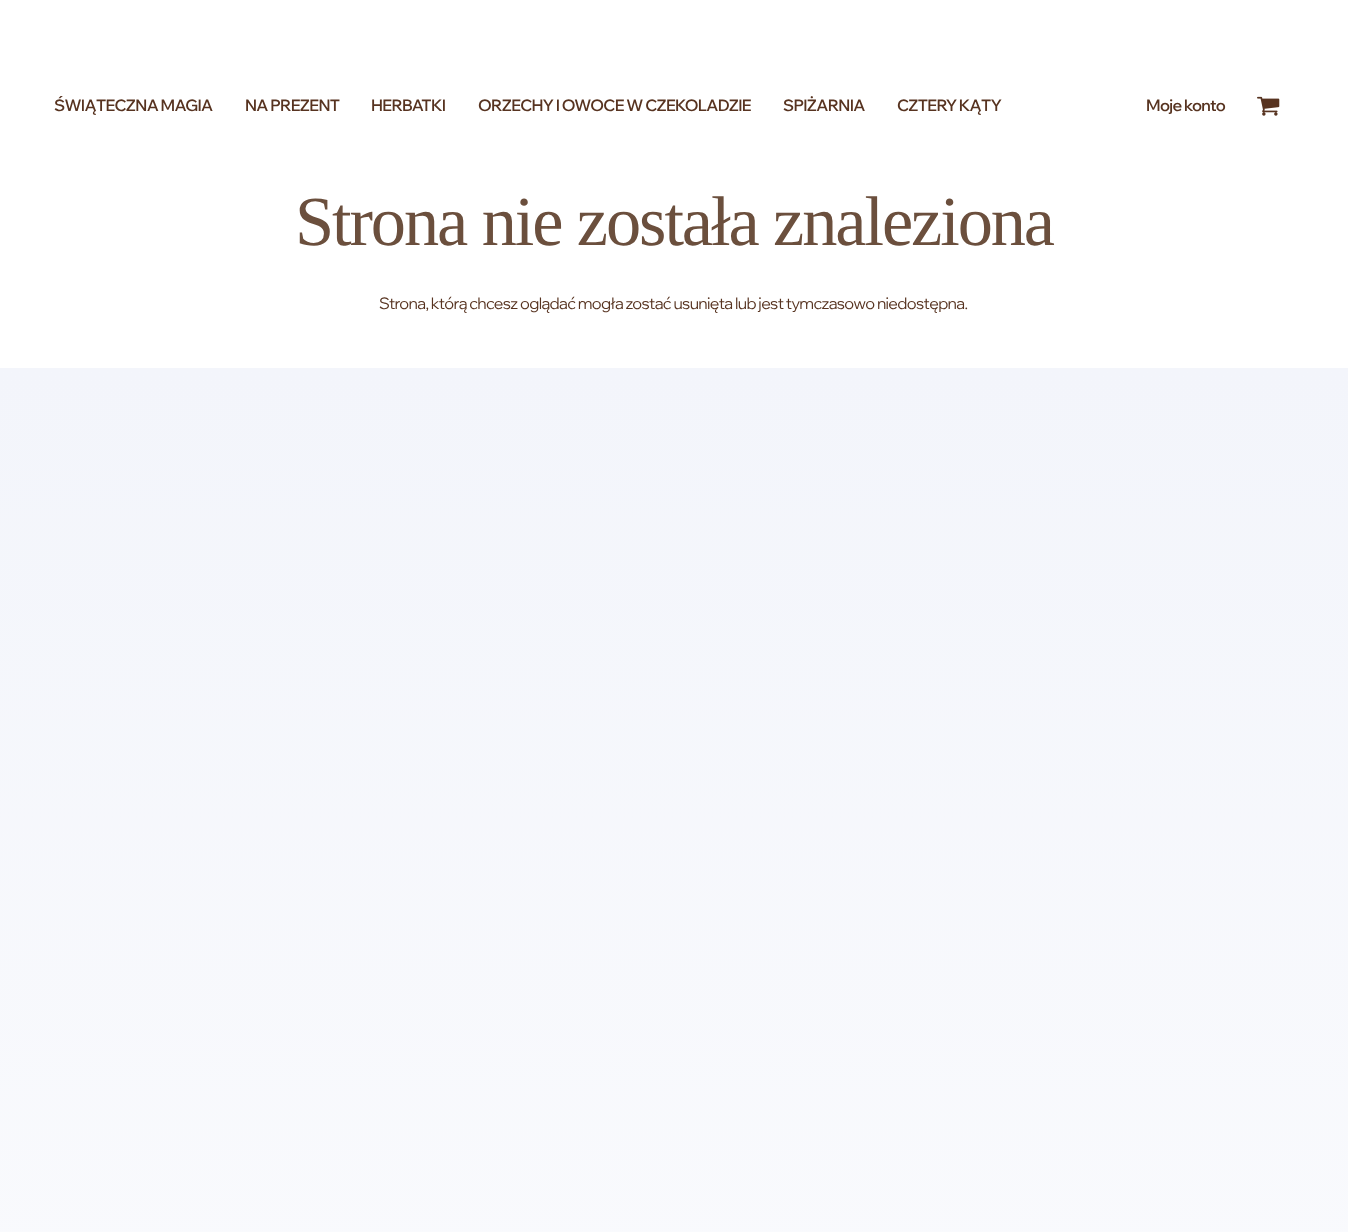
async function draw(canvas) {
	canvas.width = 1348;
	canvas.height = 1232;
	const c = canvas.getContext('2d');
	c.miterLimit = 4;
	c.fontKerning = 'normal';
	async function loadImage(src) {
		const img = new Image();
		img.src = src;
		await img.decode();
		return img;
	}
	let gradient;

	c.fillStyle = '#fff';
	c.fillRect(0, 0, 1348, 1232);
	c.letterSpacing = '-0.65px';
	c.font = '600 16px Wix Madefor Display';
	c.fillStyle = '#573320';
	for (const [text, x, y] of [
		['ŚWIĄTECZNA MAGIA', 54, 111],
		['NA PREZENT', 245, 111],
		['HERBATKI', 371, 111],
		['ORZECHY I OWOCE W CZEKOLADZIE', 478, 111],
		['SPIŻARNIA', 783, 111],
		['CZTERY KĄTY', 897, 111],
		['Moje konto', 1146, 111],
	]) {
		c.fillText(text, x, y);
	}
	c.drawImage(await loadImage('img1.png'), 1257, 96, 23, 20);
	c.letterSpacing = '-2.1px';
	c.font = '70.4px Liberation Serif';
	c.fillStyle = '#6b4f3d';
	c.fillText('Strona nie została znaleziona', 295, 245);
	c.letterSpacing = '-0.65px';
	c.font = '16px Wix Madefor Display';
	c.fillStyle = '#573320';
	c.fillText('Strona, którą chcesz oglądać mogła zostać usunięta lub jest tymczasowo niedostępna.', 379, 309);
	gradient = c.createLinearGradient(674, 368, 674, 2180);
	gradient.addColorStop(0, '#f3f5fb');
	gradient.addColorStop(1, '#fff');
	c.fillStyle = gradient;
	c.fillRect(0, 368, 1348, 864);
}

draw(document.querySelector('canvas'));
